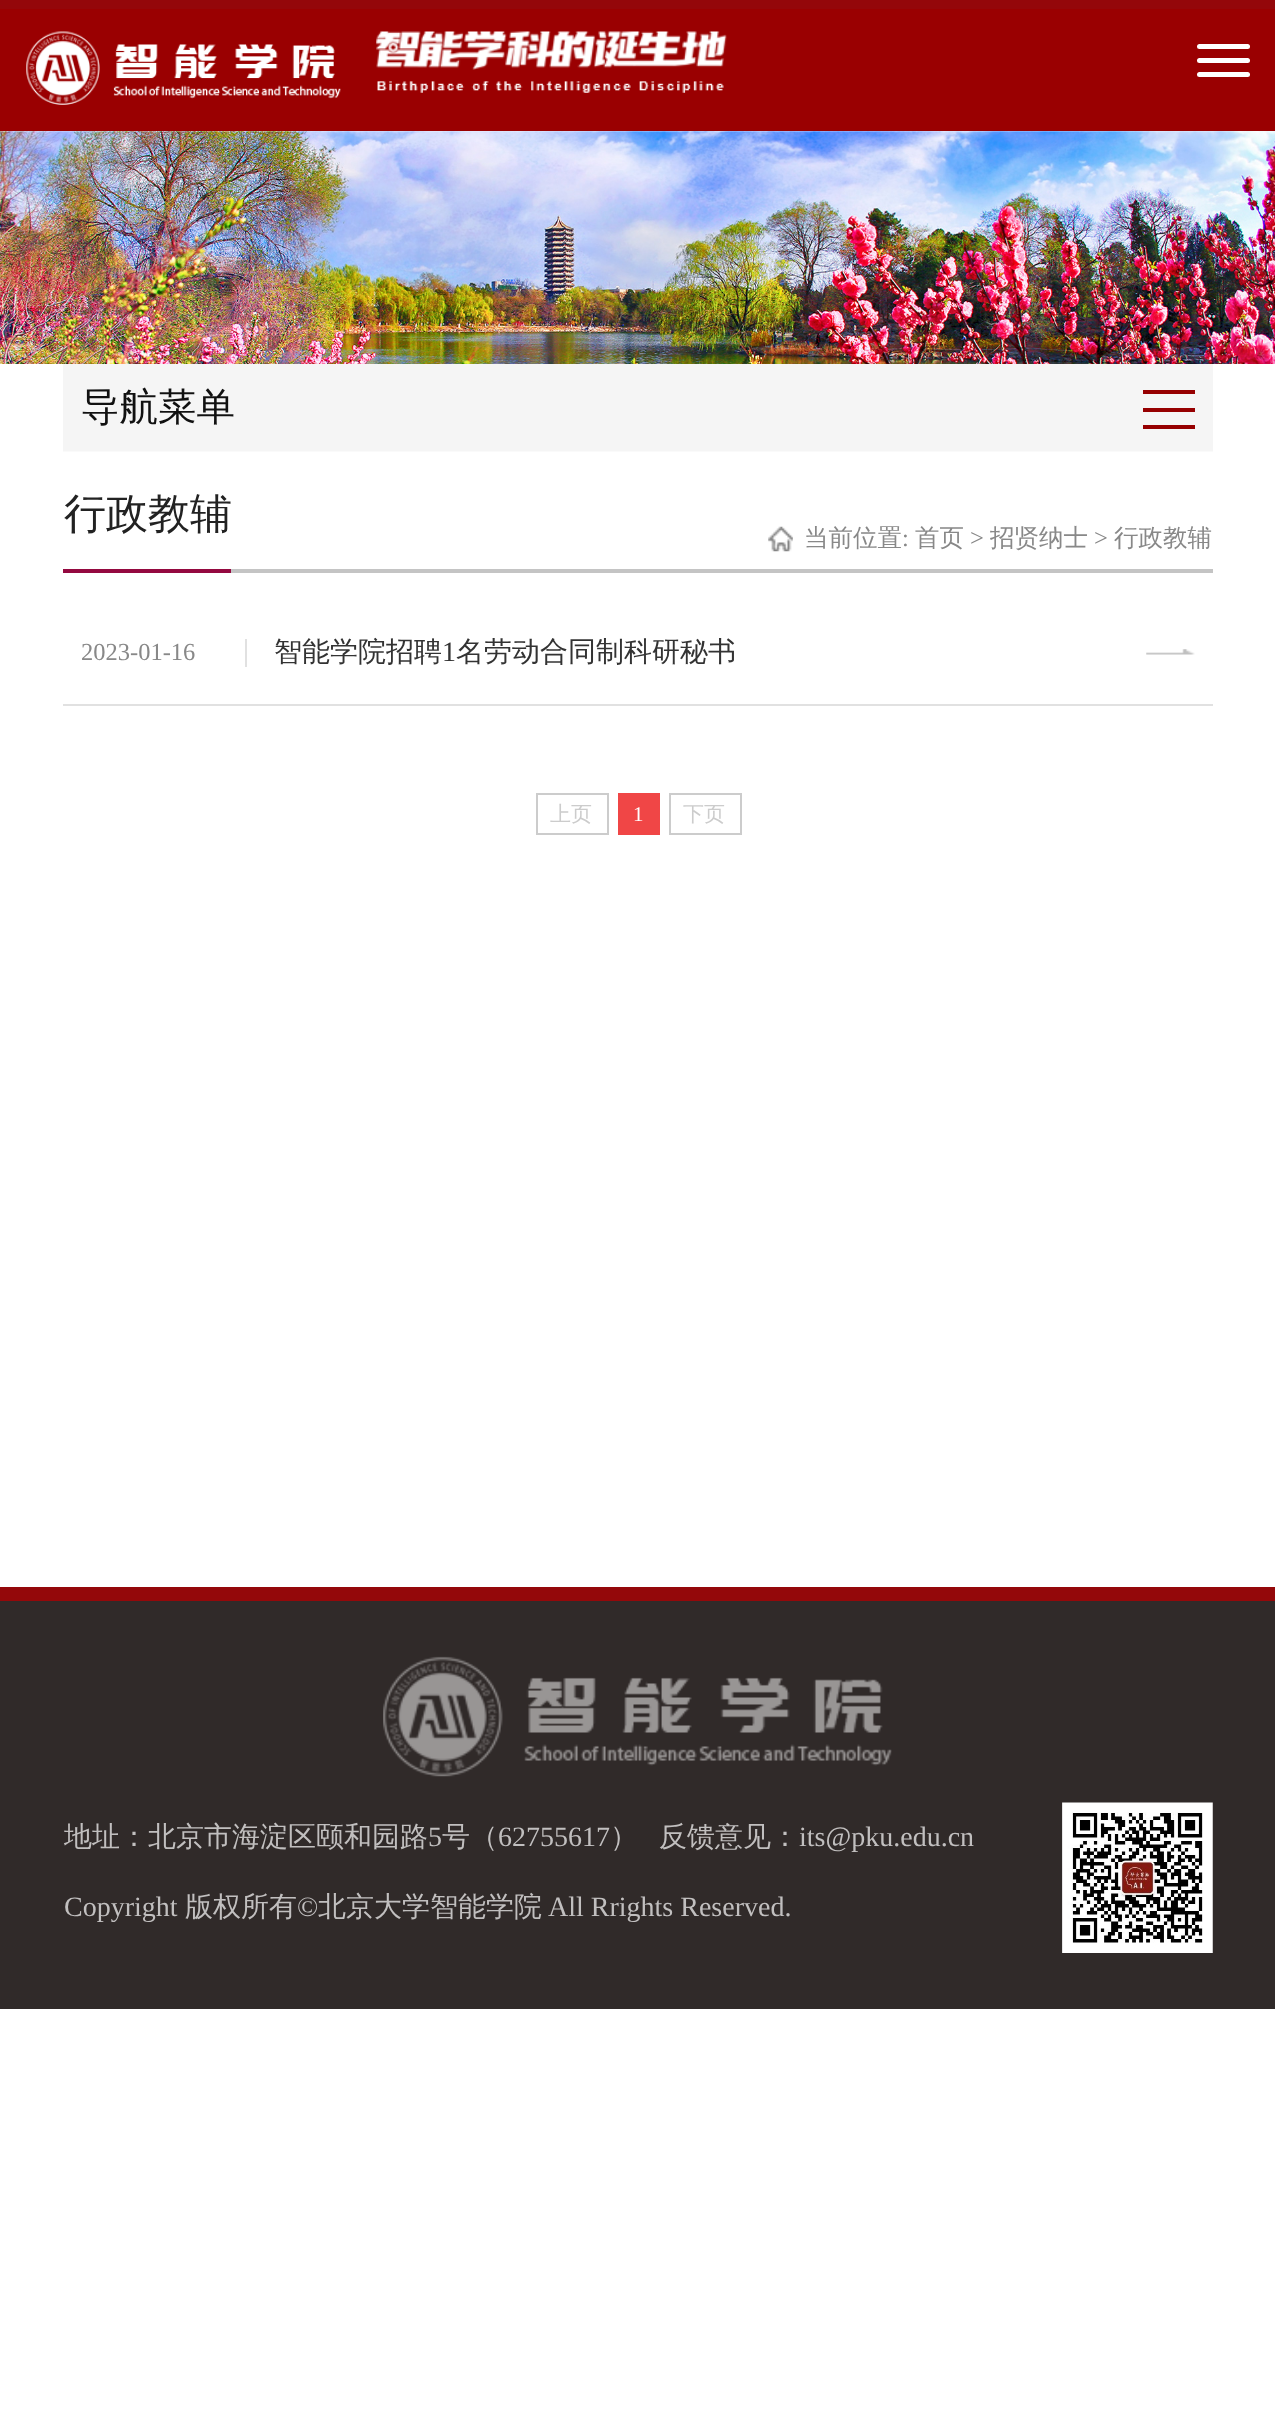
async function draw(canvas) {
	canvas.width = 1275;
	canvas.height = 2421;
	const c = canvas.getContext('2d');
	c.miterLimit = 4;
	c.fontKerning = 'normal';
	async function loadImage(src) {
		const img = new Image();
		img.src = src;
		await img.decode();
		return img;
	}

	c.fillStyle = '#fff';
	c.fillRect(0, 0, 1275, 2421);
	c.fillStyle = '#9a0001';
	c.fillRect(0, 9, 1275, 122);
	c.fillStyle = '#94070a';
	c.fillRect(0, 0, 1275, 9);
	c.drawImage(await loadImage('img1.png'), 26, 31, 315, 74);
	c.drawImage(await loadImage('img2.png'), 376, 31, 351, 62);
	c.fillStyle = '#fff';
	c.beginPath();
	c.roundRect(1197, 44, 53, 5, 2.5);
	c.fill();
	c.beginPath();
	c.roundRect(1197, 58, 53, 5, 2.5);
	c.fill();
	c.beginPath();
	c.roundRect(1197, 72, 53, 5, 2.5);
	c.fill();
	c.drawImage(await loadImage('img3.png'), 0, 131, 1275, 233);
	c.fillStyle = '#f5f5f5';
	c.fillRect(63, 364, 1150, 87);
	c.font = '500 38.5px WenQuanYi Zen Hei';
	c.fillStyle = '#111';
	c.fillText('导航菜单', 81, 420);
	for (const [x, y, w, h, color] of [
		[1143, 390, 52, 4, '#960001'],
		[1143, 408, 52, 4, '#960001'],
		[1143, 425, 52, 4, '#960001'],
		[63, 451, 1150, 1, '#fafafa'],
		[231, 569, 982, 4, '#c4c4c4'],
	]) {
		c.fillStyle = color;
		c.fillRect(x, y, w, h);
	}
	c.font = '500 42px WenQuanYi Zen Hei';
	c.fillStyle = '#222';
	c.fillText('行政教辅', 64, 528);
	c.fillStyle = '#940940';
	c.fillRect(63, 569, 168, 4);
	c.drawImage(await loadImage('img4.png'), 768, 526, 25, 26);
	c.font = '500 24.5px WenQuanYi Zen Hei';
	c.fillStyle = '#888';
	c.fillText('当前位置', 804, 546);
	c.font = '24.5px Liberation Serif';
	c.fillText(':', 902, 546);
	c.font = '500 24.5px WenQuanYi Zen Hei';
	c.fillText('首页', 915, 546);
	c.font = '24.5px Liberation Serif';
	c.fillText('>', 970, 546);
	c.font = '500 24.5px WenQuanYi Zen Hei';
	c.fillText('招贤纳士', 990, 546);
	c.font = '24.5px Liberation Serif';
	c.fillText('>', 1094, 546);
	c.font = '500 24.5px WenQuanYi Zen Hei';
	c.fillText('行政教辅', 1114, 546);
	c.fillStyle = '#e1e1e1';
	c.fillRect(63, 704, 1150, 2);
	c.font = '24.5px Liberation Serif';
	c.fillStyle = '#888';
	c.fillText('2023-01-16', 81, 660);
	c.fillStyle = '#e1e1e1';
	c.fillRect(245, 639, 2, 28);
	c.drawImage(await loadImage('img5.png'), 1146, 649, 49, 6);
	c.font = '500 28px WenQuanYi Zen Hei';
	c.fillStyle = '#333';
	c.fillText('智能学院招聘', 274, 661);
	c.font = '28px Liberation Serif';
	c.fillText('1', 442, 661);
	c.font = '500 28px WenQuanYi Zen Hei';
	c.fillText('名劳动合同制科研秘书', 456, 661);
	c.strokeStyle = '#ccc';
	c.lineWidth = 2;
	c.strokeRect(537, 794, 71, 40);
	c.font = '500 21px WenQuanYi Zen Hei';
	c.fillStyle = '#ccc';
	c.fillText('上页', 550, 821);
	c.fillStyle = '#f04646';
	c.fillRect(618, 793, 42, 42);
	c.font = '21px Liberation Serif';
	c.fillStyle = '#fff';
	c.fillText('1', 633, 821);
	c.strokeRect(670, 794, 71, 40);
	c.font = '500 21px WenQuanYi Zen Hei';
	c.fillStyle = '#ccc';
	c.fillText('下页', 683, 821);
	c.fillStyle = '#302a29';
	c.fillRect(0, 1601, 1275, 408);
	c.fillStyle = '#94080a';
	c.fillRect(0, 1587, 1275, 14);
	c.drawImage(await loadImage('img6.png'), 383, 1656, 509, 121);
	c.font = '500 28px WenQuanYi Zen Hei';
	c.fillStyle = '#c1bfbf';
	c.fillText('地址：北京市海淀区颐和园路', 64, 1846);
	c.font = '28px Liberation Serif';
	c.fillText('5', 428, 1846);
	c.font = '500 28px WenQuanYi Zen Hei';
	c.fillText('号（', 442, 1846);
	c.font = '28px Liberation Serif';
	c.fillText('62755617', 498, 1846);
	c.font = '500 28px WenQuanYi Zen Hei';
	c.fillText('）', 610, 1846);
	c.fillText('反馈意见：', 659, 1846);
	c.font = '28px Liberation Serif';
	c.fillText('its@pku.edu.cn', 799, 1846);
	c.fillText('Copyright', 64, 1916);
	c.font = '500 28px WenQuanYi Zen Hei';
	c.fillText('版权所有', 185, 1916);
	c.font = '28px Liberation Serif';
	c.fillText('©', 297, 1916);
	c.font = '500 28px WenQuanYi Zen Hei';
	c.fillText('北京大学智能学院', 318, 1916);
	c.font = '28px Liberation Serif';
	c.fillText('All Rrights Reserved.', 548, 1916);
	c.drawImage(await loadImage('img7.png'), 1062, 1802, 151, 151);
}

draw(document.querySelector('canvas'));
